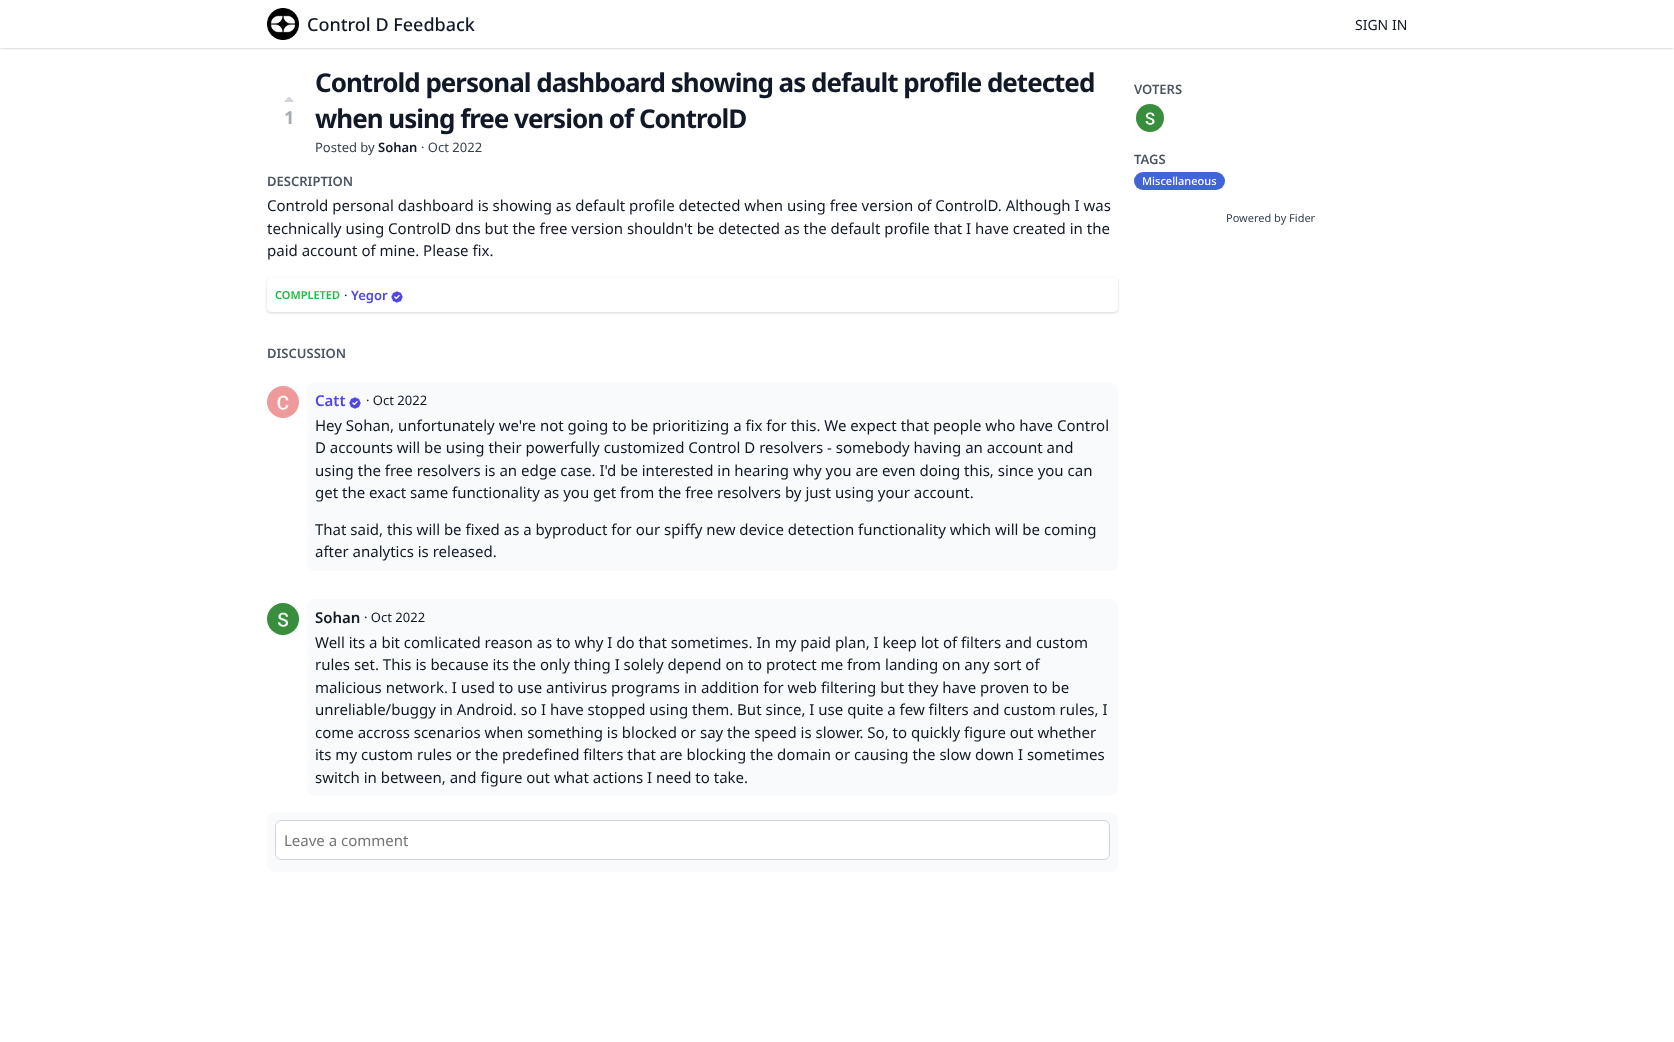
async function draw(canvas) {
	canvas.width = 1674;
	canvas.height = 1042;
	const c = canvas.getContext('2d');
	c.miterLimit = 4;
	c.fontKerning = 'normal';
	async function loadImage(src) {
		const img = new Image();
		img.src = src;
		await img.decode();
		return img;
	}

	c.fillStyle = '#fff';
	c.fillRect(0, 0, 1674, 1042);
	c.save();
	c.beginPath();
	c.rect(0, 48, 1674, 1);
	c.clip();
	c.fillStyle = '#0000000f';
	c.filter = 'blur(1px)';
	c.beginPath();
	c.rect(0, 1, 1674, 48);
	c.fill();
	c.filter = 'none';
	c.restore();
	c.save();
	c.beginPath();
	c.rect(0, 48, 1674, 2);
	c.clip();
	c.fillStyle = '#0000001a';
	c.filter = 'blur(1.5px)';
	c.beginPath();
	c.rect(0, 1, 1674, 48);
	c.fill();
	c.filter = 'none';
	c.restore();
	c.drawImage(await loadImage('img1.png'), 267, 8, 32, 32);
	c.font = '500 18px Noto Sans';
	c.fillStyle = '#111827';
	c.fillText('Control D Feedback', 307, 31);
	c.font = '14px Noto Sans';
	c.fillText('SIGN IN', 1355, 30);
	c.drawImage(await loadImage('img2.png'), 284, 97, 10, 5);
	c.font = 'bold 18px Noto Sans';
	c.fillStyle = '#a5aab1';
	c.fillText('1', 284, 124);
	c.letterSpacing = '-1px';
	c.font = 'bold 26px Noto Sans';
	c.fillStyle = '#111827';
	c.fillText('Controld personal dashboard showing as default profile detected', 315, 92);
	c.fillText('when using free version of ControlD', 315, 128);
	c.letterSpacing = '0px';
	c.font = '13px Noto Sans';
	c.fillStyle = '#374151';
	c.fillText('Posted by', 315, 152);
	c.font = '600 13px Noto Sans';
	c.fillStyle = '#111827';
	c.fillText('Sohan', 378, 152);
	c.font = '13px Noto Sans';
	c.fillStyle = '#374151';
	c.fillText('· Oct 2022', 421, 152);
	c.font = '600 13px Noto Sans';
	c.fillStyle = '#4b5563';
	c.fillText('DESCRIPTION', 267, 186);
	c.font = '15px Noto Sans';
	c.fillStyle = '#111827';
	for (const [text, x, y] of [
		['Controld personal dashboard is showing as default profile detected when using free version of ControlD. Although I was', 267, 211],
		['technically using ControlD dns but the free version shouldn\'t be detected as the default profile that I have created in the', 267, 234],
		['paid account of mine. Please fix.', 267, 256],
	]) {
		c.fillText(text, x, y);
	}
	c.save();
	c.beginPath();
	c.moveTo(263, 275);
	c.lineTo(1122, 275);
	c.lineTo(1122, 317);
	c.lineTo(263, 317);
	c.closePath();
	c.moveTo(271, 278);
	c.lineTo(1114, 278);
	c.bezierCurveTo(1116, 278, 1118, 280, 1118, 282);
	c.lineTo(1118, 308);
	c.bezierCurveTo(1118, 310, 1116, 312, 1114, 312);
	c.lineTo(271, 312);
	c.bezierCurveTo(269, 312, 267, 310, 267, 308);
	c.lineTo(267, 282);
	c.bezierCurveTo(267, 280, 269, 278, 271, 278);
	c.closePath();
	c.clip('evenodd');
	c.fillStyle = '#0000000f';
	c.filter = 'blur(1px)';
	c.beginPath();
	c.roundRect(267, 279, 851, 34, 4);
	c.fill();
	c.filter = 'none';
	c.restore();
	c.save();
	c.beginPath();
	c.moveTo(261, 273);
	c.lineTo(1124, 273);
	c.lineTo(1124, 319);
	c.lineTo(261, 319);
	c.closePath();
	c.moveTo(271, 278);
	c.lineTo(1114, 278);
	c.bezierCurveTo(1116, 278, 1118, 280, 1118, 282);
	c.lineTo(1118, 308);
	c.bezierCurveTo(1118, 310, 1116, 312, 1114, 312);
	c.lineTo(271, 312);
	c.bezierCurveTo(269, 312, 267, 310, 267, 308);
	c.lineTo(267, 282);
	c.bezierCurveTo(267, 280, 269, 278, 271, 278);
	c.closePath();
	c.clip('evenodd');
	c.fillStyle = '#0000001a';
	c.filter = 'blur(1.5px)';
	c.beginPath();
	c.roundRect(267, 279, 851, 34, 4);
	c.fill();
	c.filter = 'none';
	c.restore();
	c.font = '600 11px Noto Sans';
	c.fillStyle = '#21ba45';
	c.fillText('COMPLETED', 275, 299);
	c.font = '13px Noto Sans';
	c.fillStyle = '#111827';
	c.fillText('·', 344, 300);
	c.font = '600 13px Noto Sans';
	c.fillStyle = '#4f46e5';
	c.fillText('Yegor', 351, 300);
	c.drawImage(await loadImage('img3.png'), 391, 291, 12, 12);
	c.fillStyle = '#4b5563';
	c.fillText('VOTERS', 1134, 94);
	c.drawImage(await loadImage('img4.png'), 1136, 104, 28, 28);
	c.fillText('TAGS', 1134, 164);
	c.fillStyle = '#4065d7';
	c.beginPath();
	c.roundRect(1134, 172, 91, 18, 9);
	c.fill();
	c.font = '500 11px Noto Sans';
	c.fillStyle = '#fff';
	c.fillText('Miscellaneous', 1142, 185);
	c.font = '11px Noto Sans';
	c.fillStyle = '#374151';
	c.fillText('Powered by Fider', 1226, 222);
	c.font = '600 13px Noto Sans';
	c.fillStyle = '#4b5563';
	c.fillText('DISCUSSION', 267, 358);
	c.drawImage(await loadImage('img5.png'), 267, 386, 32, 32);
	c.fillStyle = '#f9fafb';
	c.beginPath();
	c.roundRect(307, 382, 811, 189, 8);
	c.fill();
	c.font = '600 15px Noto Sans';
	c.fillStyle = '#4f46e5';
	c.fillText('Catt', 315, 406);
	c.drawImage(await loadImage('img6.png'), 349, 397, 12, 12);
	c.font = '13px Noto Sans';
	c.fillStyle = '#111827';
	c.fillText('· Oct 2022', 366, 405);
	c.font = '15px Noto Sans';
	for (const [text, x, y] of [
		['Hey Sohan, unfortunately we\'re not going to be prioritizing a fix for this. We expect that people who have Control', 315, 431],
		['D accounts will be using their powerfully customized Control D resolvers - somebody having an account and', 315, 453],
		['using the free resolvers is an edge case. I\'d be interested in hearing why you are even doing this, since you can', 315, 476],
		['get the exact same functionality as you get from the free resolvers by just using your account.', 315, 498],
		['That said, this will be fixed as a byproduct for our spiffy new device detection functionality which will be coming', 315, 535],
		['after analytics is released.', 315, 557],
	]) {
		c.fillText(text, x, y);
	}
	c.drawImage(await loadImage('img7.png'), 267, 603, 32, 32);
	c.fillStyle = '#f9fafb';
	c.beginPath();
	c.roundRect(307, 599, 811, 197, 8);
	c.fill();
	c.font = '600 15px Noto Sans';
	c.fillStyle = '#111827';
	c.fillText('Sohan', 315, 623);
	c.font = '13px Noto Sans';
	c.fillText('· Oct 2022', 364, 622);
	c.font = '15px Noto Sans';
	for (const [text, x, y] of [
		['Well its a bit comlicated reason as to why I do that sometimes. In my paid plan, I keep lot of filters and custom', 315, 648],
		['rules set. This is because its the only thing I solely depend on to protect me from landing on any sort of', 315, 670],
		['malicious network. I used to use antivirus programs in addition for web filtering but they have proven to be', 315, 693],
		['unreliable/buggy in Android. so I have stopped using them. But since, I use quite a few filters and custom rules, I', 315, 715],
		['come accross scenarios when something is blocked or say the speed is slower. So, to quickly figure out whether', 315, 738],
		['its my custom rules or the predefined filters that are blocking the domain or causing the slow down I sometimes', 315, 760],
		['switch in between, and figure out what actions I need to take.', 315, 783],
	]) {
		c.fillText(text, x, y);
	}
	c.fillStyle = '#f9fafb';
	c.beginPath();
	c.roundRect(267, 812, 851, 60, 8);
	c.fill();
	c.fillStyle = '#fff';
	c.beginPath();
	c.roundRect(275.5, 820.5, 834, 39, 5.5);
	c.fill();
	c.strokeStyle = '#d1d5db';
	c.stroke();
	c.fillStyle = '#757575';
	c.fillText('Leave a comment', 284, 846);
}

draw(document.querySelector('canvas'));
